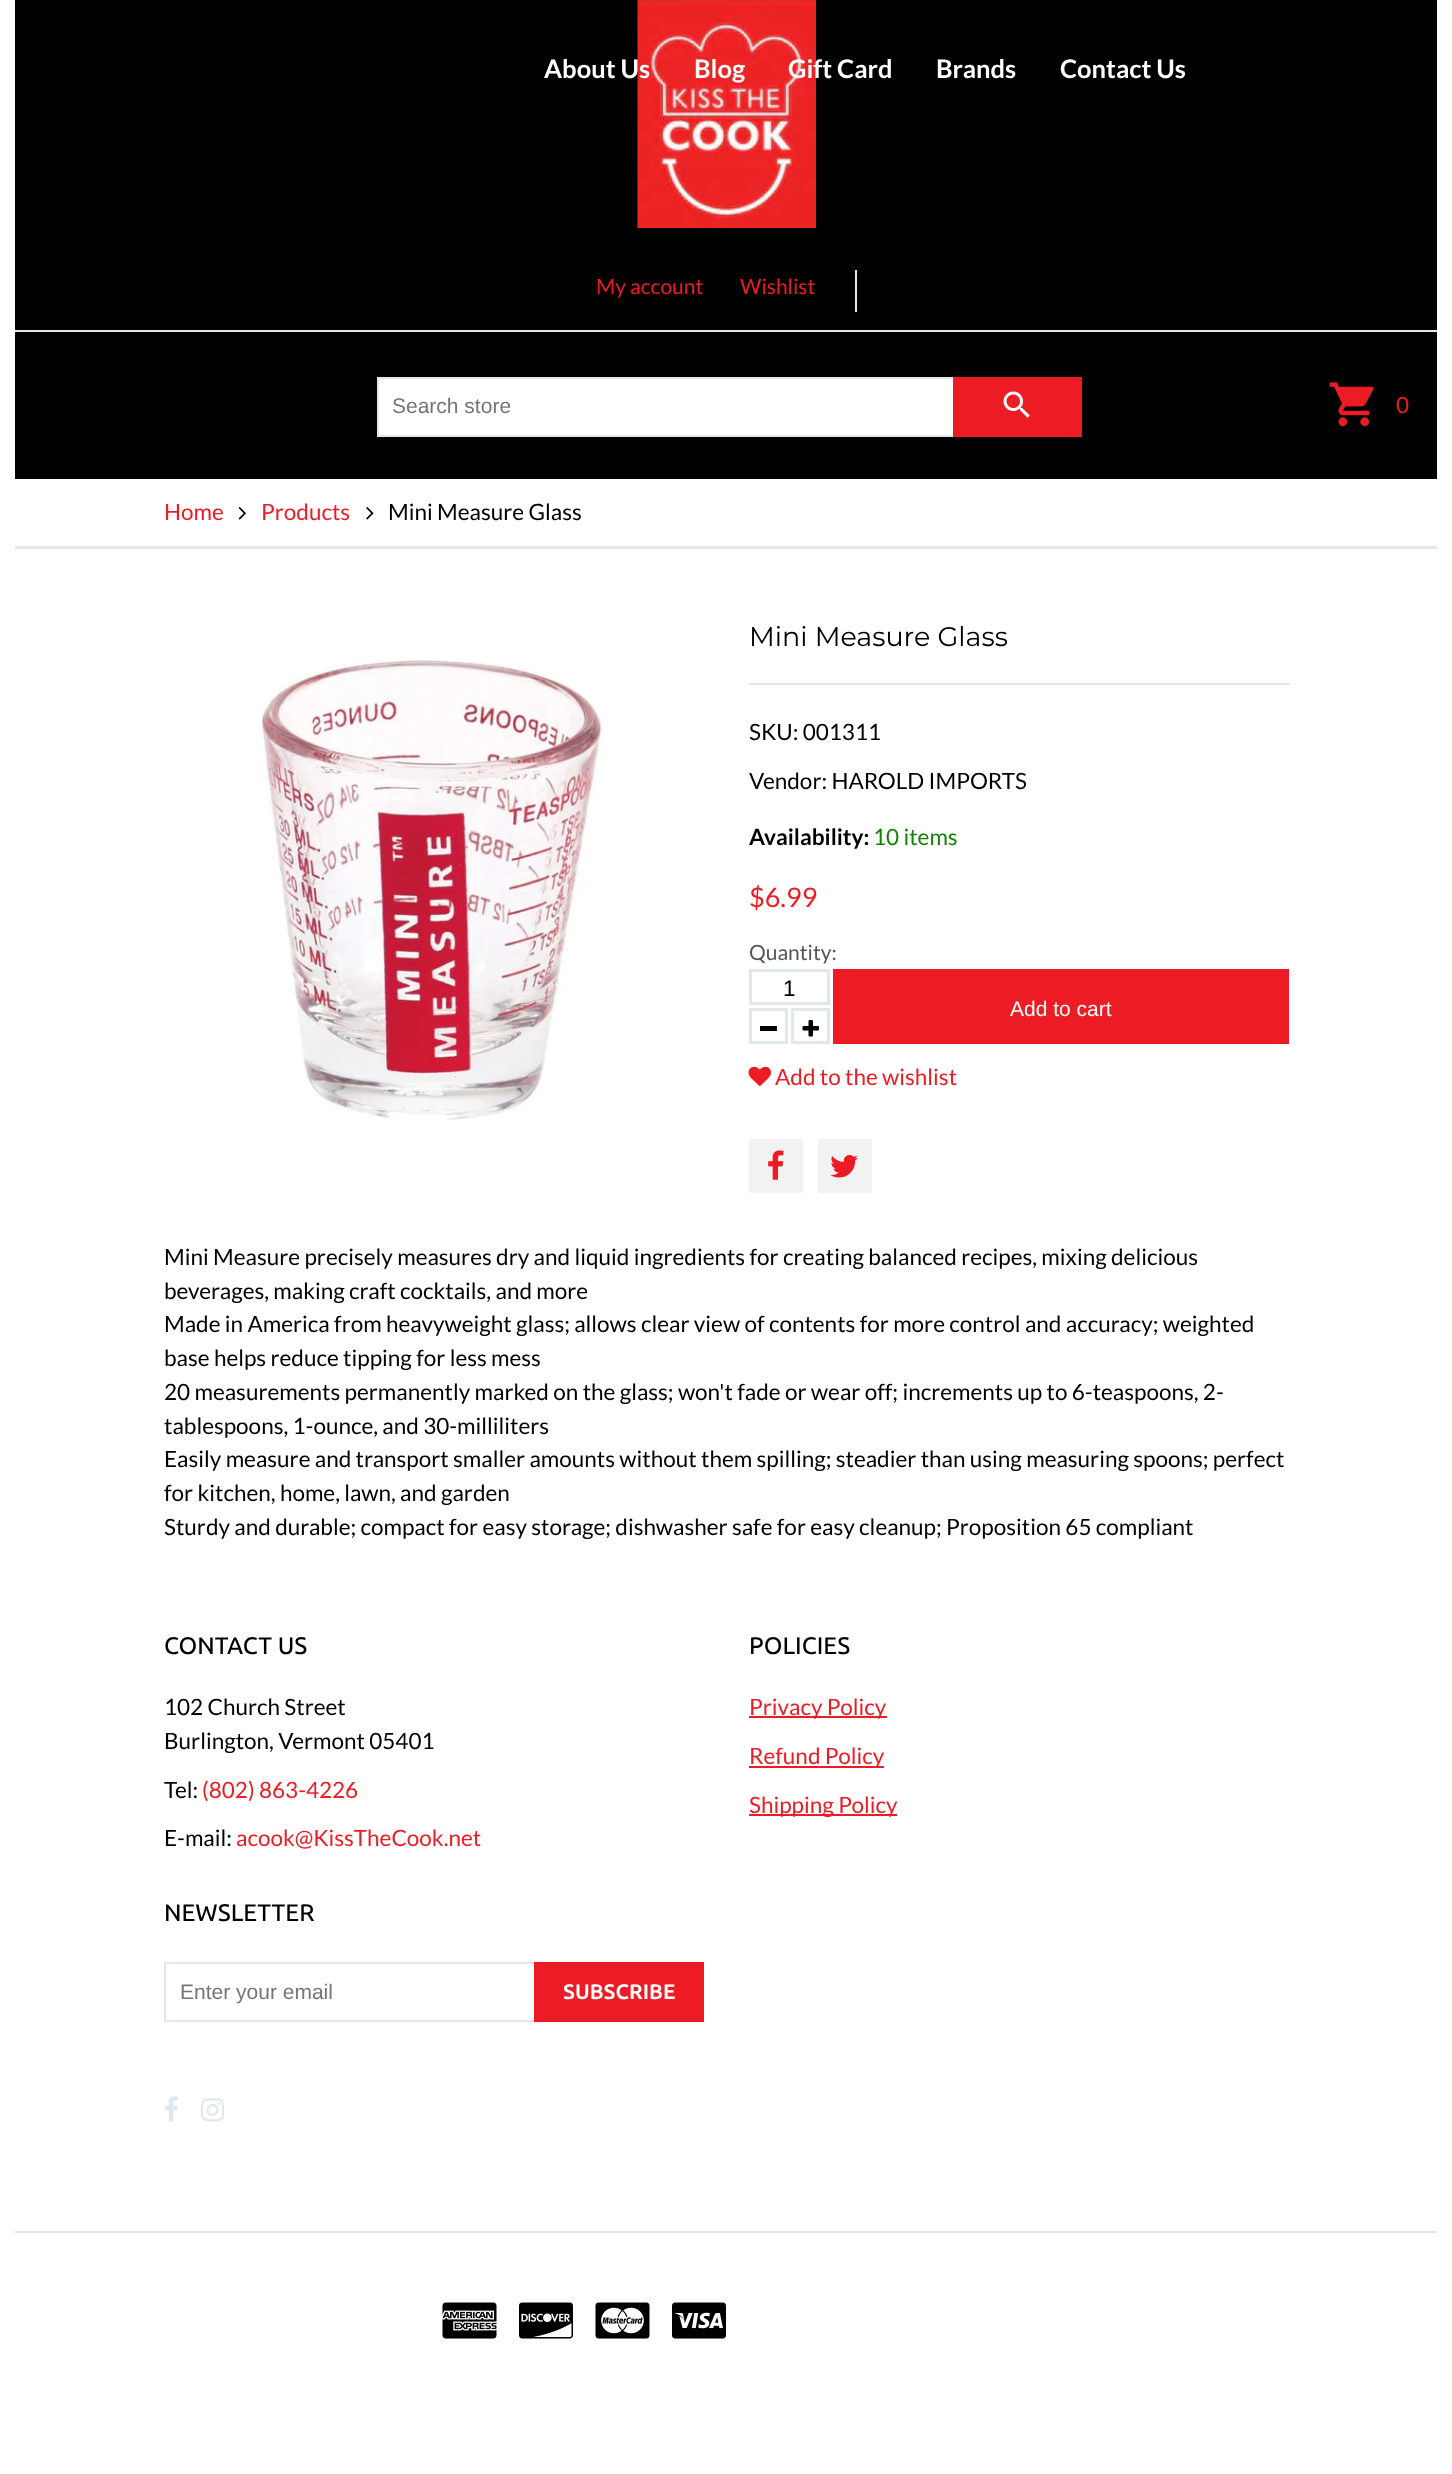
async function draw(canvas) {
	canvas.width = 1452;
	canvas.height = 2474;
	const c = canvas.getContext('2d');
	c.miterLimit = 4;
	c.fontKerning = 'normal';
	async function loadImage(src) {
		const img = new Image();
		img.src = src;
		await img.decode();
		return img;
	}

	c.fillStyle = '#fff';
	c.fillRect(0, 0, 1452, 2474);
	c.fillStyle = '#000';
	c.fillRect(15, 0, 1422, 479);
	c.drawImage(await loadImage('img1.png'), 637, 0, 179, 228);
	c.font = 'bold 25.5px Lato';
	c.fillStyle = '#fff';
	for (const [text, x, y] of [
		['About Us', 544, 78],
		['Blog', 694, 78],
		['Gift Card', 788, 78],
		['Brands', 936, 78],
		['Contact Us', 1060, 78],
	]) {
		c.fillText(text, x, y);
	}
	c.fillStyle = '#e0e7ed';
	c.fillRect(15, 330, 1422, 2);
	c.fillRect(855, 270, 2, 42);
	c.font = '21px Lato';
	c.fillStyle = '#ed1c24';
	c.fillText('My account', 596, 294);
	c.fillText('Wishlist', 740, 294);
	c.fillStyle = '#fff';
	c.fillRect(379, 379, 574, 56);
	c.strokeStyle = '#e0e7ed';
	c.lineWidth = 2;
	c.strokeRect(378, 378, 703, 58);
	c.font = '21px Liberation Sans';
	c.fillStyle = '#757575';
	c.fillText('Search store', 392, 413);
	c.fillStyle = '#ed1c24';
	c.fillRect(953, 377, 129, 60);
	c.drawImage(await loadImage('img2.png'), 1003, 391, 27, 27);
	c.drawImage(await loadImage('img3.png'), 1329, 382, 45, 45);
	c.font = '22.5px Lato';
	c.fillText('0', 1396, 413);
	c.fillStyle = '#e0e7ed';
	c.fillRect(15, 546, 1422, 3);
	c.fillStyle = '#ed1c24';
	c.fillText('Home', 164, 520);
	c.drawImage(await loadImage('img4.png'), 238, 507, 8, 13);
	c.fillText('Products', 261, 520);
	c.drawImage(await loadImage('img5.png'), 366, 507, 8, 13);
	c.fillStyle = '#000';
	c.fillText('Mini Measure Glass', 388, 520);
	c.drawImage(await loadImage('img6.png'), 262, 660, 341, 460);
	c.font = '27px Montserrat';
	c.fillText('Mini Measure Glass', 749, 646);
	c.fillStyle = '#e0e7ed';
	c.fillRect(749, 683, 540, 2);
	c.font = '22.5px Lato';
	c.fillStyle = '#000';
	c.fillText('SKU: 001311', 749, 740);
	c.fillText('Vendor: HAROLD IMPORTS', 749, 789);
	c.font = 'bold 22.5px Lato';
	c.fillText('Availability:', 749, 845);
	c.font = '22.5px Lato';
	c.fillStyle = '#118502';
	c.fillText('10 items', 873, 845);
	c.font = '27px Lato';
	c.fillStyle = '#ed1c24';
	c.fillText('$6.99', 749, 907);
	c.font = '21px Lato';
	c.fillStyle = '#555';
	c.fillText('Quantity:', 749, 960);
	c.lineWidth = 3;
	c.strokeRect(750.5, 970.5, 78, 33);
	c.font = '22.5px Liberation Sans';
	c.fillStyle = '#000';
	c.fillText('1', 783, 996);
	c.strokeRect(750.5, 1009.5, 36, 33);
	c.fillRect(760, 1026, 17, 5);
	c.strokeRect(792.5, 1009.5, 36, 33);
	c.drawImage(await loadImage('img7.png'), 802, 1020, 17, 17);
	c.fillStyle = '#ed1c24';
	c.fillRect(833, 969, 456, 75);
	c.font = '21px Liberation Sans';
	c.fillStyle = '#fff';
	c.fillText('Add to cart', 1010, 1016);
	c.drawImage(await loadImage('img8.png'), 748, 1066, 23, 21);
	c.font = '22.5px Lato';
	c.fillStyle = '#ed1c24';
	c.fillText('Add to the wishlist', 775, 1085);
	c.fillStyle = '#f2f2f2';
	c.fillRect(749, 1139, 54, 54);
	c.drawImage(await loadImage('img9.png'), 768, 1150, 16, 30);
	c.fillRect(818, 1139, 54, 54);
	c.drawImage(await loadImage('img10.png'), 830, 1155, 28, 23);
	c.fillStyle = '#000';
	for (const [text, x, y] of [
		['Mini Measure precisely measures dry and liquid ingredients for creating balanced recipes, mixing delicious', 164, 1265],
		['beverages, making craft cocktails, and more', 164, 1299],
		['Made in America from heavyweight glass; allows clear view of contents for more control and accuracy; weighted', 164, 1332],
		['base helps reduce tipping for less mess', 164, 1366],
		['20 measurements permanently marked on the glass; won\'t fade or wear off; increments up to 6-teaspoons, 2-', 164, 1400],
		['tablespoons, 1-ounce, and 30-milliliters', 164, 1434],
		['Easily measure and transport smaller amounts without them spilling; steadier than using measuring spoons; perfect', 164, 1467],
		['for kitchen, home, lawn, and garden', 164, 1501],
		['Sturdy and durable; compact for easy storage; dishwasher safe for easy cleanup; Proposition 65 compliant', 164, 1535],
	]) {
		c.fillText(text, x, y);
	}
	c.fillStyle = '#e0e7ed';
	c.fillRect(15, 2231, 1422, 2);
	c.font = '500 24px Ubuntu';
	c.fillStyle = '#000';
	c.fillText('CONTACT US', 164, 1654);
	c.font = '22.5px Lato';
	for (const [text, x, y] of [
		['102 Church Street', 164, 1715],
		['Burlington, Vermont 05401', 164, 1749],
		['Tel:', 164, 1798],
	]) {
		c.fillText(text, x, y);
	}
	c.fillStyle = '#ed1c24';
	c.fillText('(802) 863-4226', 202, 1798);
	c.fillStyle = '#000';
	c.fillText('E-mail:', 164, 1846);
	c.fillStyle = '#ed1c24';
	c.fillText('acook@KissTheCook.net', 236, 1846);
	c.font = '500 24px Ubuntu';
	c.fillStyle = '#000';
	c.fillText('POLICIES', 749, 1654);
	c.fillStyle = '#ed1c24';
	c.fillRect(749, 1716, 138, 2);
	c.font = '22.5px Lato';
	c.fillText('Privacy Policy', 749, 1715);
	c.fillRect(749, 1766, 135, 2);
	c.fillText('Refund Policy', 749, 1764);
	c.fillRect(749, 1814, 148, 2);
	c.fillText('Shipping Policy', 749, 1813);
	c.font = '500 24px Ubuntu';
	c.fillStyle = '#000';
	c.fillText('NEWSLETTER', 164, 1921);
	c.lineWidth = 2;
	c.strokeRect(165, 1963, 538, 58);
	c.font = '21px Liberation Sans';
	c.fillStyle = '#757575';
	c.fillText('Enter your email', 180, 1999);
	c.fillStyle = '#ed1c24';
	c.fillRect(534, 1962, 170, 60);
	c.font = 'bold 21px Ubuntu';
	c.fillStyle = '#fff';
	c.fillText('SUBSCRIBE', 563, 1999);
	c.drawImage(await loadImage('img11.png'), 165, 2096, 13, 26);
	c.drawImage(await loadImage('img12.png'), 201, 2098, 24, 24);
	c.drawImage(await loadImage('img13.png'), 442, 2302, 55, 37);
	c.drawImage(await loadImage('img14.png'), 519, 2302, 54, 37);
	c.drawImage(await loadImage('img15.png'), 595, 2302, 55, 37);
	c.drawImage(await loadImage('img16.png'), 672, 2302, 54, 37);
}

draw(document.querySelector('canvas'));
